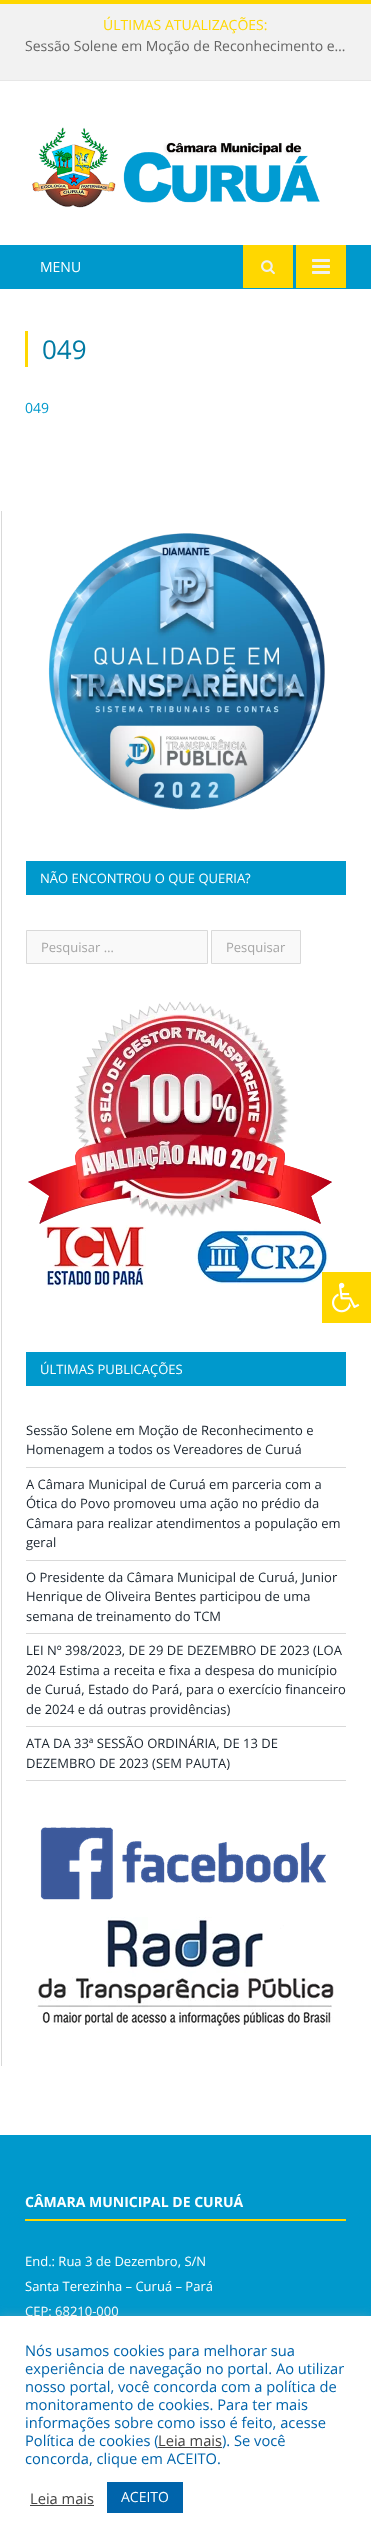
async function draw(canvas) {
	canvas.width = 371;
	canvas.height = 2543;
	const c = canvas.getContext('2d');
	c.miterLimit = 4;
	c.fontKerning = 'normal';
	async function loadImage(src) {
		const img = new Image();
		img.src = src;
		await img.decode();
		return img;
	}

	c.fillStyle = '#fff';
	c.fillRect(0, 0, 371, 2543);
	for (const [x, y, w, h, color] of [
		[0, 4, 371, 76, '#f2f2f2'],
		[0, 0, 371, 4, '#ffd700'],
		[0, 80, 371, 1, '#e7e7e7'],
	]) {
		c.fillStyle = color;
		c.fillRect(x, y, w, h);
	}
	c.font = '14px Open Sans';
	c.fillStyle = '#ffd700';
	c.fillText('ÚLTIMAS ATUALIZAÇÕES:', 103, 30);
	c.fillStyle = '#656565';
	c.fillText('Sessão Solene em Moção de Reconhecimento e…', 25, 51);
	c.drawImage(await loadImage('img1.png'), 32, 127, 288, 81);
	c.fillStyle = '#09c';
	c.fillRect(0, 245, 371, 44);
	c.fillStyle = '#fff';
	c.fillText('MENU', 40, 272);
	c.fillStyle = '#ffd700';
	c.fillRect(243, 245, 50, 43);
	c.drawImage(await loadImage('img2.png'), 261, 260, 14, 15);
	c.fillRect(296, 245, 50, 43);
	c.drawImage(await loadImage('img3.png'), 312, 259, 18, 15);
	c.fillRect(25, 331, 3, 36);
	c.font = '26px Open Sans';
	c.fillStyle = '#007aa3';
	c.fillText('049', 42, 359);
	c.font = '14px Open Sans';
	c.fillStyle = '#09c';
	c.fillText('049', 25, 413);
	c.fillStyle = '#d9d9d9';
	c.fillRect(1, 511, 1, 1555);
	c.drawImage(await loadImage('img4.png'), 48, 533, 277, 277);
	c.fillStyle = '#09c';
	c.fillRect(26, 861, 320, 34);
	c.font = '13px Open Sans';
	c.fillStyle = '#fff';
	c.fillText('NÃO ENCONTROU O QUE QUERIA?', 40, 883);
	c.fillStyle = '#f9f9f9';
	c.beginPath();
	c.rect(26.5, 930.5, 181, 33);
	c.fill();
	c.strokeStyle = '#d9d9d9';
	c.stroke();
	c.fillStyle = '#a6a6a6';
	c.fillText('Pesquisar …', 41, 952);
	c.fillStyle = '#f9f9f9';
	c.beginPath();
	c.rect(211.5, 930.5, 89, 33);
	c.fill();
	c.stroke();
	c.fillStyle = '#a6a6a6';
	c.fillText('Pesquisar', 226, 952);
	c.drawImage(await loadImage('img5.png'), 28, 1001, 304, 286);
	c.fillStyle = '#09c';
	c.fillRect(26, 1352, 320, 34);
	c.fillStyle = '#fff';
	c.fillText('ÚLTIMAS PUBLICAÇÕES', 40, 1374);
	c.fillStyle = '#d9d9d9';
	c.fillRect(26, 1467, 320, 1);
	c.fillStyle = '#19232d';
	c.fillText('Sessão Solene em Moção de Reconhecimento e', 26, 1435);
	c.fillText('Homenagem a todos os Vereadores de Curuá', 26, 1454);
	c.fillStyle = '#d9d9d9';
	c.fillRect(26, 1560, 320, 1);
	c.fillStyle = '#19232d';
	for (const [text, x, y] of [
		['A Câmara Municipal de Curuá em parceria com a', 26, 1489],
		['Ótica do Povo promoveu uma ação no prédio da', 26, 1508],
		['Câmara para realizar atendimentos a população em', 26, 1528],
		['geral', 26, 1547],
	]) {
		c.fillText(text, x, y);
	}
	c.fillStyle = '#d9d9d9';
	c.fillRect(26, 1633, 320, 1);
	c.fillStyle = '#19232d';
	for (const [text, x, y] of [
		['O Presidente da Câmara Municipal de Curuá, Junior', 26, 1582],
		['Henrique de Oliveira Bentes participou de uma', 26, 1601],
		['semana de treinamento do TCM', 26, 1621],
	]) {
		c.fillText(text, x, y);
	}
	c.fillStyle = '#d9d9d9';
	c.fillRect(26, 1726, 320, 1);
	c.fillStyle = '#19232d';
	for (const [text, x, y] of [
		['LEI Nº 398/2023, DE 29 DE DEZEMBRO DE 2023 (LOA', 26, 1655],
		['2024 Estima a receita e fixa a despesa do município', 26, 1675],
		['de Curuá, Estado do Pará, para o exercício financeiro', 26, 1694],
		['de 2024 e dá outras providências)', 26, 1714],
	]) {
		c.fillText(text, x, y);
	}
	c.fillStyle = '#d9d9d9';
	c.fillRect(26, 1780, 320, 1);
	c.fillStyle = '#19232d';
	c.fillText('ATA DA 33ª SESSÃO ORDINÁRIA, DE 13 DE', 26, 1748);
	c.fillText('DEZEMBRO DE 2023 (SEM PAUTA)', 26, 1768);
	c.drawImage(await loadImage('img6.png'), 40, 1827, 286, 73);
	c.drawImage(await loadImage('img7.png'), 37, 1917, 297, 109);
	c.fillStyle = '#09c';
	c.fillRect(0, 2135, 371, 181);
	c.fillStyle = '#ffd700';
	c.fillRect(25, 2219, 321, 2);
	c.font = 'bold 14px Open Sans';
	c.fillStyle = '#fff';
	c.fillText('CÂMARA MUNICIPAL DE CURUÁ', 25, 2207);
	c.font = '13px Open Sans';
	for (const [text, x, y] of [
		['End.: Rua 3 de Dezembro, S/N', 25, 2266],
		['Santa Terezinha – Curuá – Pará', 25, 2291],
		['CEP: 68210-000', 25, 2316],
	]) {
		c.fillText(text, x, y);
	}
	c.fillStyle = '#ffd700';
	c.fillRect(322, 1272, 49, 51);
	c.drawImage(await loadImage('img8.png'), 332, 1282, 28, 31);
	c.fillStyle = '#acabab4d';
	c.filter = 'blur(5px)';
	c.beginPath();
	c.rect(0, 2315, 371, 227);
	c.fill();
	c.filter = 'none';
	c.fillStyle = '#fff';
	c.fillRect(0, 2316, 371, 227);
	c.font = '14.7px Open Sans';
	c.fillStyle = '#0064ab';
	for (const [text, x, y] of [
		['Nós usamos cookies para melhorar sua', 25, 2356],
		['experiência de navegação no portal. Ao utilizar', 25, 2374],
		['nosso portal, você concorda com a política de', 25, 2392],
		['monitoramento de cookies. Para ter mais', 25, 2410],
		['informações sobre como isso é feito, acesse', 25, 2428],
		['Política de cookies (', 25, 2446],
	]) {
		c.fillText(text, x, y);
	}
	c.fillStyle = '#444';
	c.fillText('Leia mais', 158, 2446);
	c.fillRect(158, 2447, 64, 1);
	c.fillStyle = '#0064ab';
	c.fillText('). Se você', 222, 2446);
	c.fillText('concorda, clique em ACEITO.', 25, 2464);
	c.fillStyle = '#444';
	c.fillText('Leia mais', 30, 2504);
	c.fillRect(30, 2505, 64, 1);
	c.fillStyle = '#0064ab';
	c.fillRect(107, 2482, 76, 31);
	c.font = '14px Open Sans';
	c.fillStyle = '#fff';
	c.fillText('ACEITO', 121, 2502);
}

draw(document.querySelector('canvas'));
